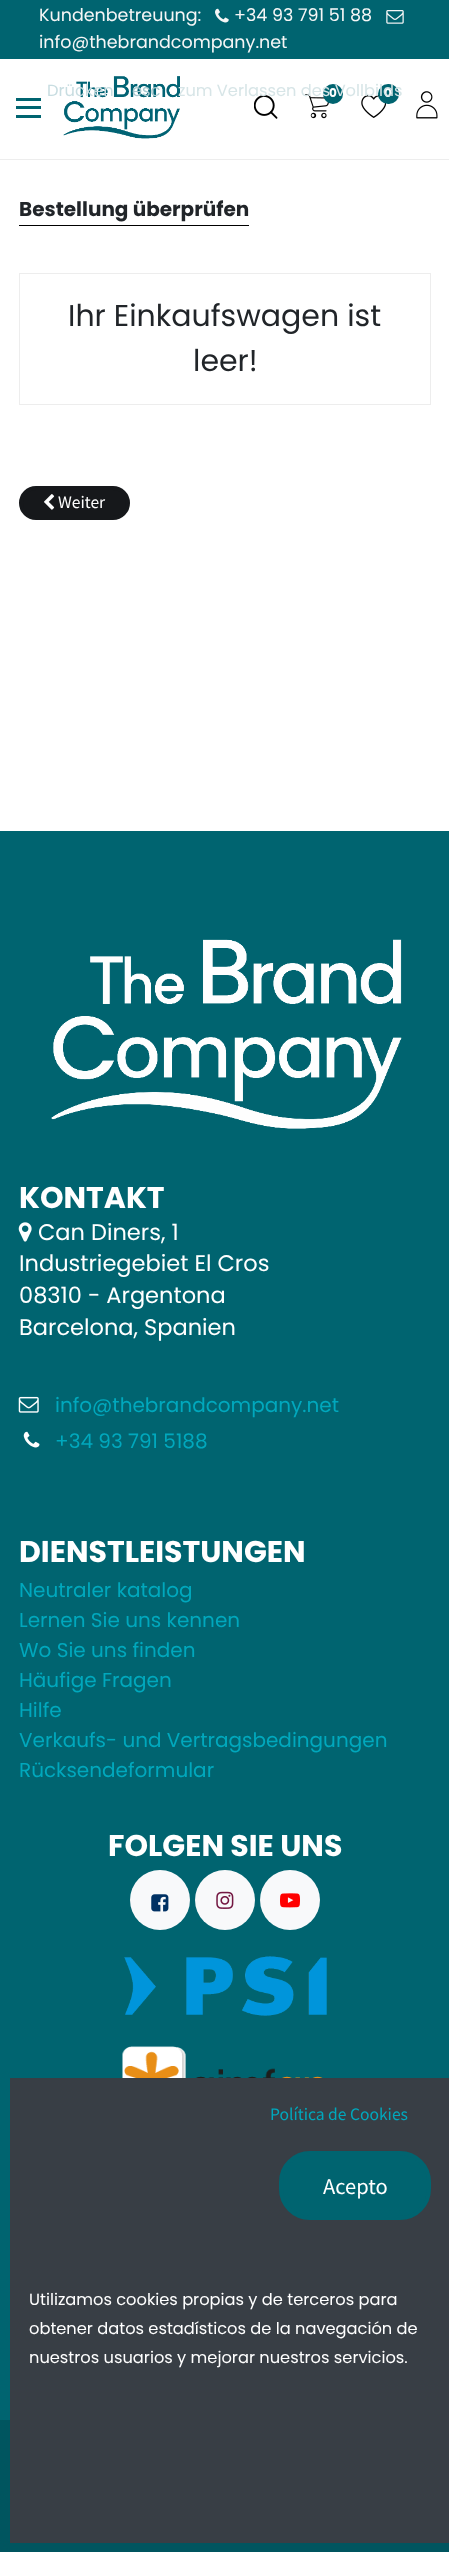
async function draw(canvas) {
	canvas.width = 449;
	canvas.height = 2552;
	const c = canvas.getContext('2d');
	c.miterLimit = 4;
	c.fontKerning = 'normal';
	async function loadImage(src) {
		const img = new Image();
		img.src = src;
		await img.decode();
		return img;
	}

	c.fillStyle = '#fff';
	c.fillRect(0, 0, 449, 2552);
	c.fillStyle = '#006470';
	c.fillRect(0, 0, 449, 59);
	c.font = '17.5px Poppins';
	c.fillStyle = '#f6f6f6';
	c.fillText('Kundenbetreuung:', 39, 21);
	c.drawImage(await loadImage('img1.png'), 215, 8, 14, 15);
	c.fillText('+34 93 791 51 88', 234, 21);
	c.drawImage(await loadImage('img2.png'), 386, 10, 18, 14);
	c.fillText('info@thebrandcompany.net', 39, 48);
	for (const [x, y, w, h, color] of [
		[16, 98, 25, 3, '#006470'],
		[16, 106, 25, 3, '#006470'],
		[16, 115, 25, 3, '#006470'],
	]) {
		c.fillStyle = color;
		c.fillRect(x, y, w, h);
	}
	c.drawImage(await loadImage('img3.png'), 63, 76, 117, 63);
	c.drawImage(await loadImage('img4.png'), 254, 95, 24, 24);
	c.drawImage(await loadImage('img5.png'), 305, 94, 24, 25);
	c.beginPath();
	c.arc(333, 94, 10, 0, 2 * Math.PI);
	c.fill();
	c.font = 'bold 12px Poppins';
	c.fillStyle = '#fff';
	c.fillText('0', 329, 97);
	c.drawImage(await loadImage('img6.png'), 361, 95, 25, 23);
	c.fillStyle = '#006470';
	c.beginPath();
	c.roundRect(378, 84, 21, 20, 10);
	c.fill();
	c.fillStyle = '#fff';
	c.fillText('0', 384, 97);
	c.drawImage(await loadImage('img7.png'), 416, 91, 22, 28);
	c.fillStyle = '#ededed';
	c.fillRect(0, 159, 449, 1);
	c.fillStyle = '#000';
	c.fillRect(19, 225, 230, 1);
	c.font = 'bold 20px Poppins';
	c.fillStyle = '#212529';
	c.fillText('Bestellung überprüfen', 19, 216);
	c.strokeStyle = '#ededed';
	c.strokeRect(19.5, 273.5, 411, 131);
	c.font = '30px Poppins';
	c.fillText('Ihr Einkaufswagen ist', 68, 326);
	c.fillText('leer!', 193, 371);
	c.fillStyle = '#16181b';
	c.beginPath();
	c.roundRect(21, 488, 107, 30, 15);
	c.fill();
	c.strokeStyle = '#16181b';
	c.lineWidth = 4;
	c.stroke();
	c.drawImage(await loadImage('img8.png'), 44, 494, 11, 16);
	c.font = '17.5px Source Sans Pro';
	c.fillStyle = '#fff';
	c.fillText('Weiter', 58, 508);
	c.fillStyle = '#006470';
	c.fillRect(0, 831, 449, 1589);
	c.drawImage(await loadImage('img9.png'), 51, 939, 351, 190);
	c.font = 'bold 30px Poppins';
	c.fillStyle = '#fff';
	c.fillText('KONTAKT', 19, 1208);
	c.drawImage(await loadImage('img10.png'), 18, 1222, 14, 20);
	c.font = '22.5px Poppins';
	for (const [text, x, y] of [
		['Can Diners, 1', 38, 1240],
		['Industriegebiet El Cros', 19, 1271],
		['08310 - Argentona', 19, 1303],
		['Barcelona, Spanien', 19, 1335],
	]) {
		c.fillText(text, x, y);
	}
	c.drawImage(await loadImage('img11.png'), 18, 1396, 21, 17);
	c.font = '20px Poppins';
	c.fillStyle = '#00a8bd';
	c.fillText('info@thebrandcompany.net', 55, 1412);
	c.drawImage(await loadImage('img12.png'), 23, 1431, 17, 17);
	c.fillText('+34 93 791 5188', 55, 1448);
	c.font = 'bold 30px Poppins';
	c.fillStyle = '#fff';
	c.fillText('DIENSTLEISTUNGEN', 19, 1562);
	c.font = '20px Poppins';
	c.fillStyle = '#00a8bd';
	for (const [text, x, y] of [
		['Neutraler katalog', 19, 1597],
		['Lernen Sie uns kennen', 19, 1627],
		['Wo Sie uns finden', 19, 1657],
		['Häufige Fragen', 19, 1687],
		['Hilfe', 19, 1717],
		['Verkaufs- und Vertragsbedingungen', 19, 1747],
		['Rücksendeformular', 19, 1777],
	]) {
		c.fillText(text, x, y);
	}
	c.font = 'bold 30px Poppins';
	c.fillStyle = '#fff';
	c.fillText('FOLGEN SIE UNS', 108, 1856);
	c.fillStyle = '#f8f9fa';
	c.beginPath();
	c.arc(160, 1900, 30, 0, 2 * Math.PI);
	c.fill();
	c.drawImage(await loadImage('img13.png'), 151, 1894, 18, 18);
	c.beginPath();
	c.arc(225, 1900, 30, 0, 2 * Math.PI);
	c.fill();
	c.drawImage(await loadImage('img14.png'), 216, 1891, 18, 18);
	c.beginPath();
	c.arc(290, 1900, 30, 0, 2 * Math.PI);
	c.fill();
	c.drawImage(await loadImage('img15.png'), 280, 1893, 20, 15);
	c.drawImage(await loadImage('img16.png'), 124, 1956, 203, 60);
	c.drawImage(await loadImage('img17.png'), 122, 2046, 201, 32);
	c.fillStyle = '#00555f';
	c.fillRect(0, 2420, 449, 132);
	c.fillStyle = '#383e45';
	c.fillRect(10, 2078, 439, 465);
	c.font = '17.5px Source Sans Pro';
	c.fillStyle = '#00a8bd';
	c.fillText('Política de Cookies', 270, 2120);
	c.fillStyle = '#006470';
	c.beginPath();
	c.roundRect(281, 2153, 148, 65, 29);
	c.fill();
	c.strokeStyle = '#006470';
	c.stroke();
	c.font = '22.5px Source Sans Pro';
	c.fillStyle = '#fff';
	c.fillText('Acepto', 323, 2194);
	c.font = '16.25px Poppins';
	for (const [text, x, y] of [
		['Utilizamos cookies propias y de terceros para', 29, 2305],
		['obtener datos estadísticos de la navegación de', 29, 2334],
		['nuestros usuarios y mejorar nuestros servicios.', 29, 2363],
	]) {
		c.fillText(text, x, y);
	}
	c.fillStyle = '#c8dde1';
	c.fillText('Drücken', 47, 96);
	c.fillStyle = '#a6c8ce';
	c.fillText('esc', 132, 96);
	c.fillStyle = '#d7e5e7';
	c.fillText('zum Verlassen des Vollbilds', 178, 96);
}

draw(document.querySelector('canvas'));
